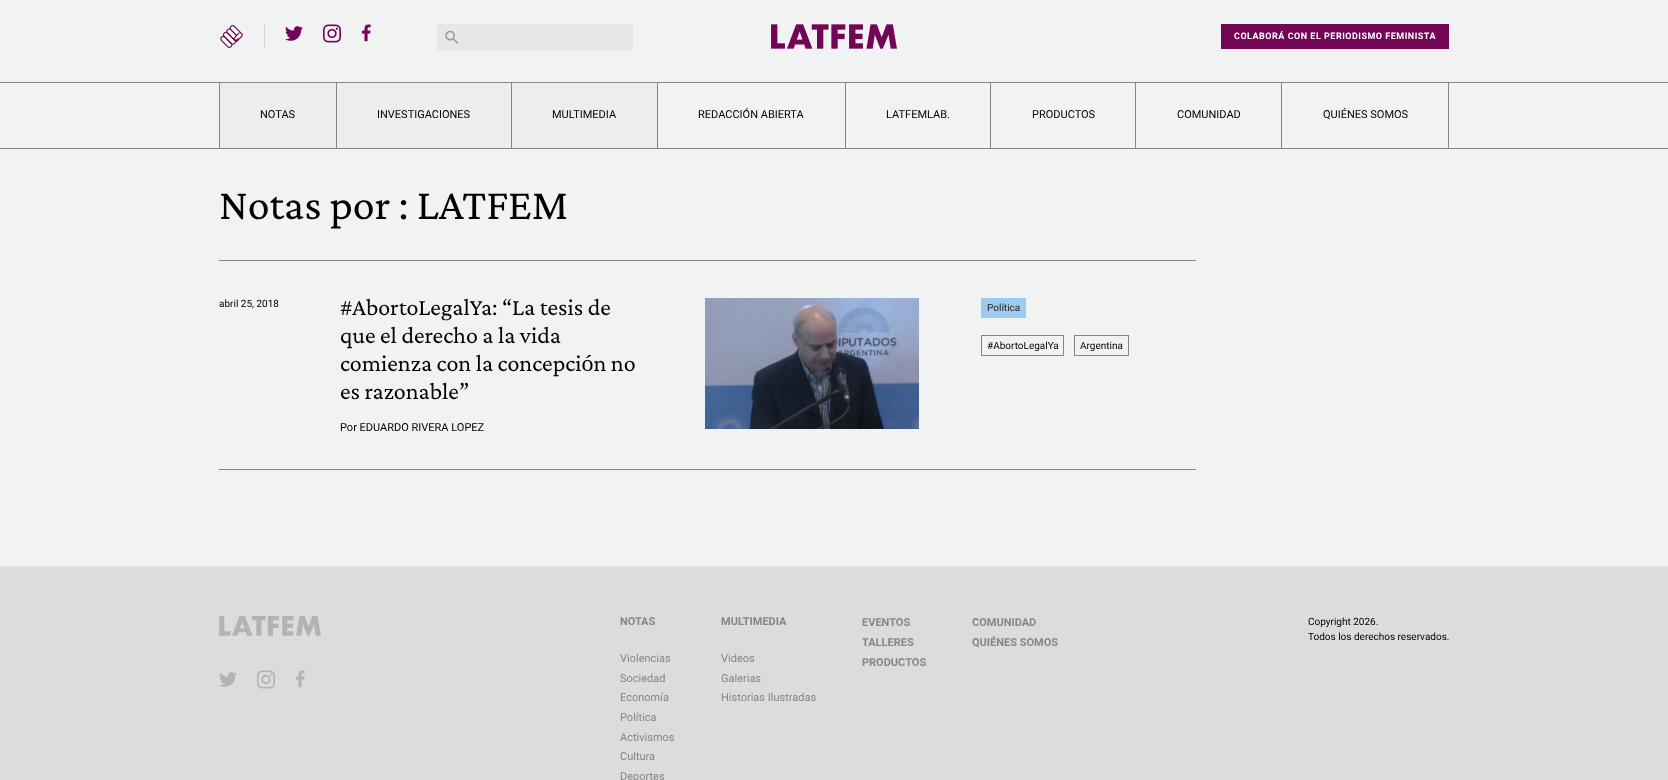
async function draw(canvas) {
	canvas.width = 1668;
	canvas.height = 780;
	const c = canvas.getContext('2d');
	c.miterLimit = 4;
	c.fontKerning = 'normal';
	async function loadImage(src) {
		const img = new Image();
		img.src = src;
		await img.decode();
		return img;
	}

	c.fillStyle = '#f1f2f2';
	c.fillRect(0, 0, 1668, 780);
	c.drawImage(await loadImage('img1.png'), 220, 25, 23, 23);
	c.fillStyle = '#d1d3d4';
	c.fillRect(264, 24, 1, 25);
	c.drawImage(await loadImage('img2.png'), 285, 26, 18, 15);
	c.drawImage(await loadImage('img3.png'), 323, 24, 18, 19);
	c.drawImage(await loadImage('img4.png'), 361, 24, 10, 18);
	c.fillStyle = '#e6e7e8';
	c.fillRect(437, 24, 196, 26);
	c.drawImage(await loadImage('img5.png'), 445, 30, 14, 14);
	c.drawImage(await loadImage('img6.png'), 771, 24, 126, 25);
	c.fillStyle = '#720556';
	c.fillRect(1221, 24, 228, 25);
	c.letterSpacing = '0.5px';
	c.font = 'bold 9px Roboto';
	c.fillStyle = '#fff';
	c.fillText('COLABORÁ CON EL PERIODISMO FEMINISTA', 1234, 39);
	for (const [x, y, w, h, color] of [
		[0, 82, 1668, 1, '#868686'],
		[0, 148, 1668, 1, '#868686'],
		[1448, 83, 1, 65, '#868686'],
		[220, 83, 116, 65, '#eceded'],
		[219, 83, 1, 65, '#868686'],
	]) {
		c.fillStyle = color;
		c.fillRect(x, y, w, h);
	}
	c.letterSpacing = '0px';
	c.font = '11px Roboto';
	c.fillStyle = '#000';
	c.fillText('NOTAS', 260, 118);
	c.fillStyle = '#eceded';
	c.fillRect(337, 83, 174, 65);
	c.fillStyle = '#868686';
	c.fillRect(336, 83, 1, 65);
	c.fillStyle = '#000';
	c.fillText('INVESTIGACIONES', 377, 118);
	c.fillStyle = '#eceded';
	c.fillRect(512, 83, 145, 65);
	c.fillStyle = '#868686';
	c.fillRect(511, 83, 1, 65);
	c.fillStyle = '#000';
	c.fillText('MULTIMEDIA', 552, 118);
	c.fillStyle = '#868686';
	c.fillRect(657, 83, 1, 65);
	c.fillStyle = '#000';
	c.fillText('REDACCIÓN ABIERTA', 698, 118);
	c.fillStyle = '#868686';
	c.fillRect(845, 83, 1, 65);
	c.fillStyle = '#000';
	c.fillText('LATFEMLAB.', 886, 118);
	c.fillStyle = '#868686';
	c.fillRect(990, 83, 1, 65);
	c.fillStyle = '#000';
	c.fillText('PRODUCTOS', 1032, 118);
	c.fillStyle = '#868686';
	c.fillRect(1135, 83, 1, 65);
	c.fillStyle = '#000';
	c.fillText('COMUNIDAD', 1177, 118);
	c.fillStyle = '#868686';
	c.fillRect(1281, 83, 1, 65);
	c.fillStyle = '#000';
	c.fillText('QUIÉNES SOMOS', 1323, 118);
	c.fillStyle = '#868686';
	c.fillRect(219, 260, 977, 1);
	c.font = '44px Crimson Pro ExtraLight';
	c.fillStyle = '#000';
	c.fillText('Notas por : LATFEM', 219, 219);
	c.fillStyle = '#868686';
	c.fillRect(219, 469, 977, 1);
	c.font = '10px Roboto';
	c.fillStyle = '#000';
	c.fillText('abril 25, 2018', 219, 307);
	c.font = '24px Crimson Pro ExtraLight';
	for (const [text, x, y] of [
		['#AbortoLegalYa: “La tesis de', 340, 315],
		['que el derecho a la vida', 340, 343],
		['comienza con la concepción no', 340, 371],
		['es razonable”', 340, 399],
	]) {
		c.fillText(text, x, y);
	}
	c.font = '11px Roboto';
	c.fillText('Por EDUARDO RIVERA LOPEZ', 340, 431);
	c.drawImage(await loadImage('img7.png'), 705, 298, 214, 131);
	c.fillStyle = '#9bcbef';
	c.fillRect(981, 298, 45, 20);
	c.font = '10px Roboto';
	c.fillStyle = '#231f20';
	c.fillText('Política', 987, 311);
	c.strokeStyle = '#868686';
	c.strokeRect(981.5, 335.5, 82, 20);
	c.fillStyle = '#000';
	c.fillText('#AbortoLegalYa', 987, 349);
	c.strokeRect(1074.5, 335.5, 54, 20);
	c.fillText('Argentina', 1080, 349);
	c.fillStyle = '#dcdcdc';
	c.fillRect(0, 566, 1668, 214);
	c.drawImage(await loadImage('img8.png'), 219, 616, 102, 20);
	c.drawImage(await loadImage('img9.png'), 219, 672, 18, 15);
	c.drawImage(await loadImage('img10.png'), 257, 670, 18, 19);
	c.drawImage(await loadImage('img11.png'), 296, 670, 9, 18);
	c.font = 'bold 11px Roboto';
	c.fillStyle = '#868686';
	c.fillText('NOTAS', 620, 625);
	c.font = '11px Roboto';
	for (const [text, x, y] of [
		['Violencias', 620, 662],
		['Sociedad', 620, 682],
		['Economía', 620, 701],
		['Política', 620, 721],
		['Activismos', 620, 741],
		['Cultura', 620, 760],
		['Deportes', 620, 780],
	]) {
		c.fillText(text, x, y);
	}
	c.font = 'bold 11px Roboto';
	c.fillText('MULTIMEDIA', 721, 625);
	c.font = '11px Roboto';
	for (const [text, x, y] of [
		['Videos', 721, 662],
		['Galerias', 721, 682],
		['Historias Ilustradas', 721, 701],
	]) {
		c.fillText(text, x, y);
	}
	c.font = 'bold 11px Roboto';
	for (const [text, x, y] of [
		['EVENTOS', 862, 626],
		['TALLERES', 862, 646],
		['PRODUCTOS', 862, 666],
		['COMUNIDAD', 972, 626],
		['QUIÉNES SOMOS', 972, 646],
	]) {
		c.fillText(text, x, y);
	}
	c.font = '10px Roboto';
	c.fillStyle = '#000';
	c.fillText('Copyright 2026.', 1308, 625);
	c.fillText('Todos los derechos reservados.', 1308, 640);
}

draw(document.querySelector('canvas'));
